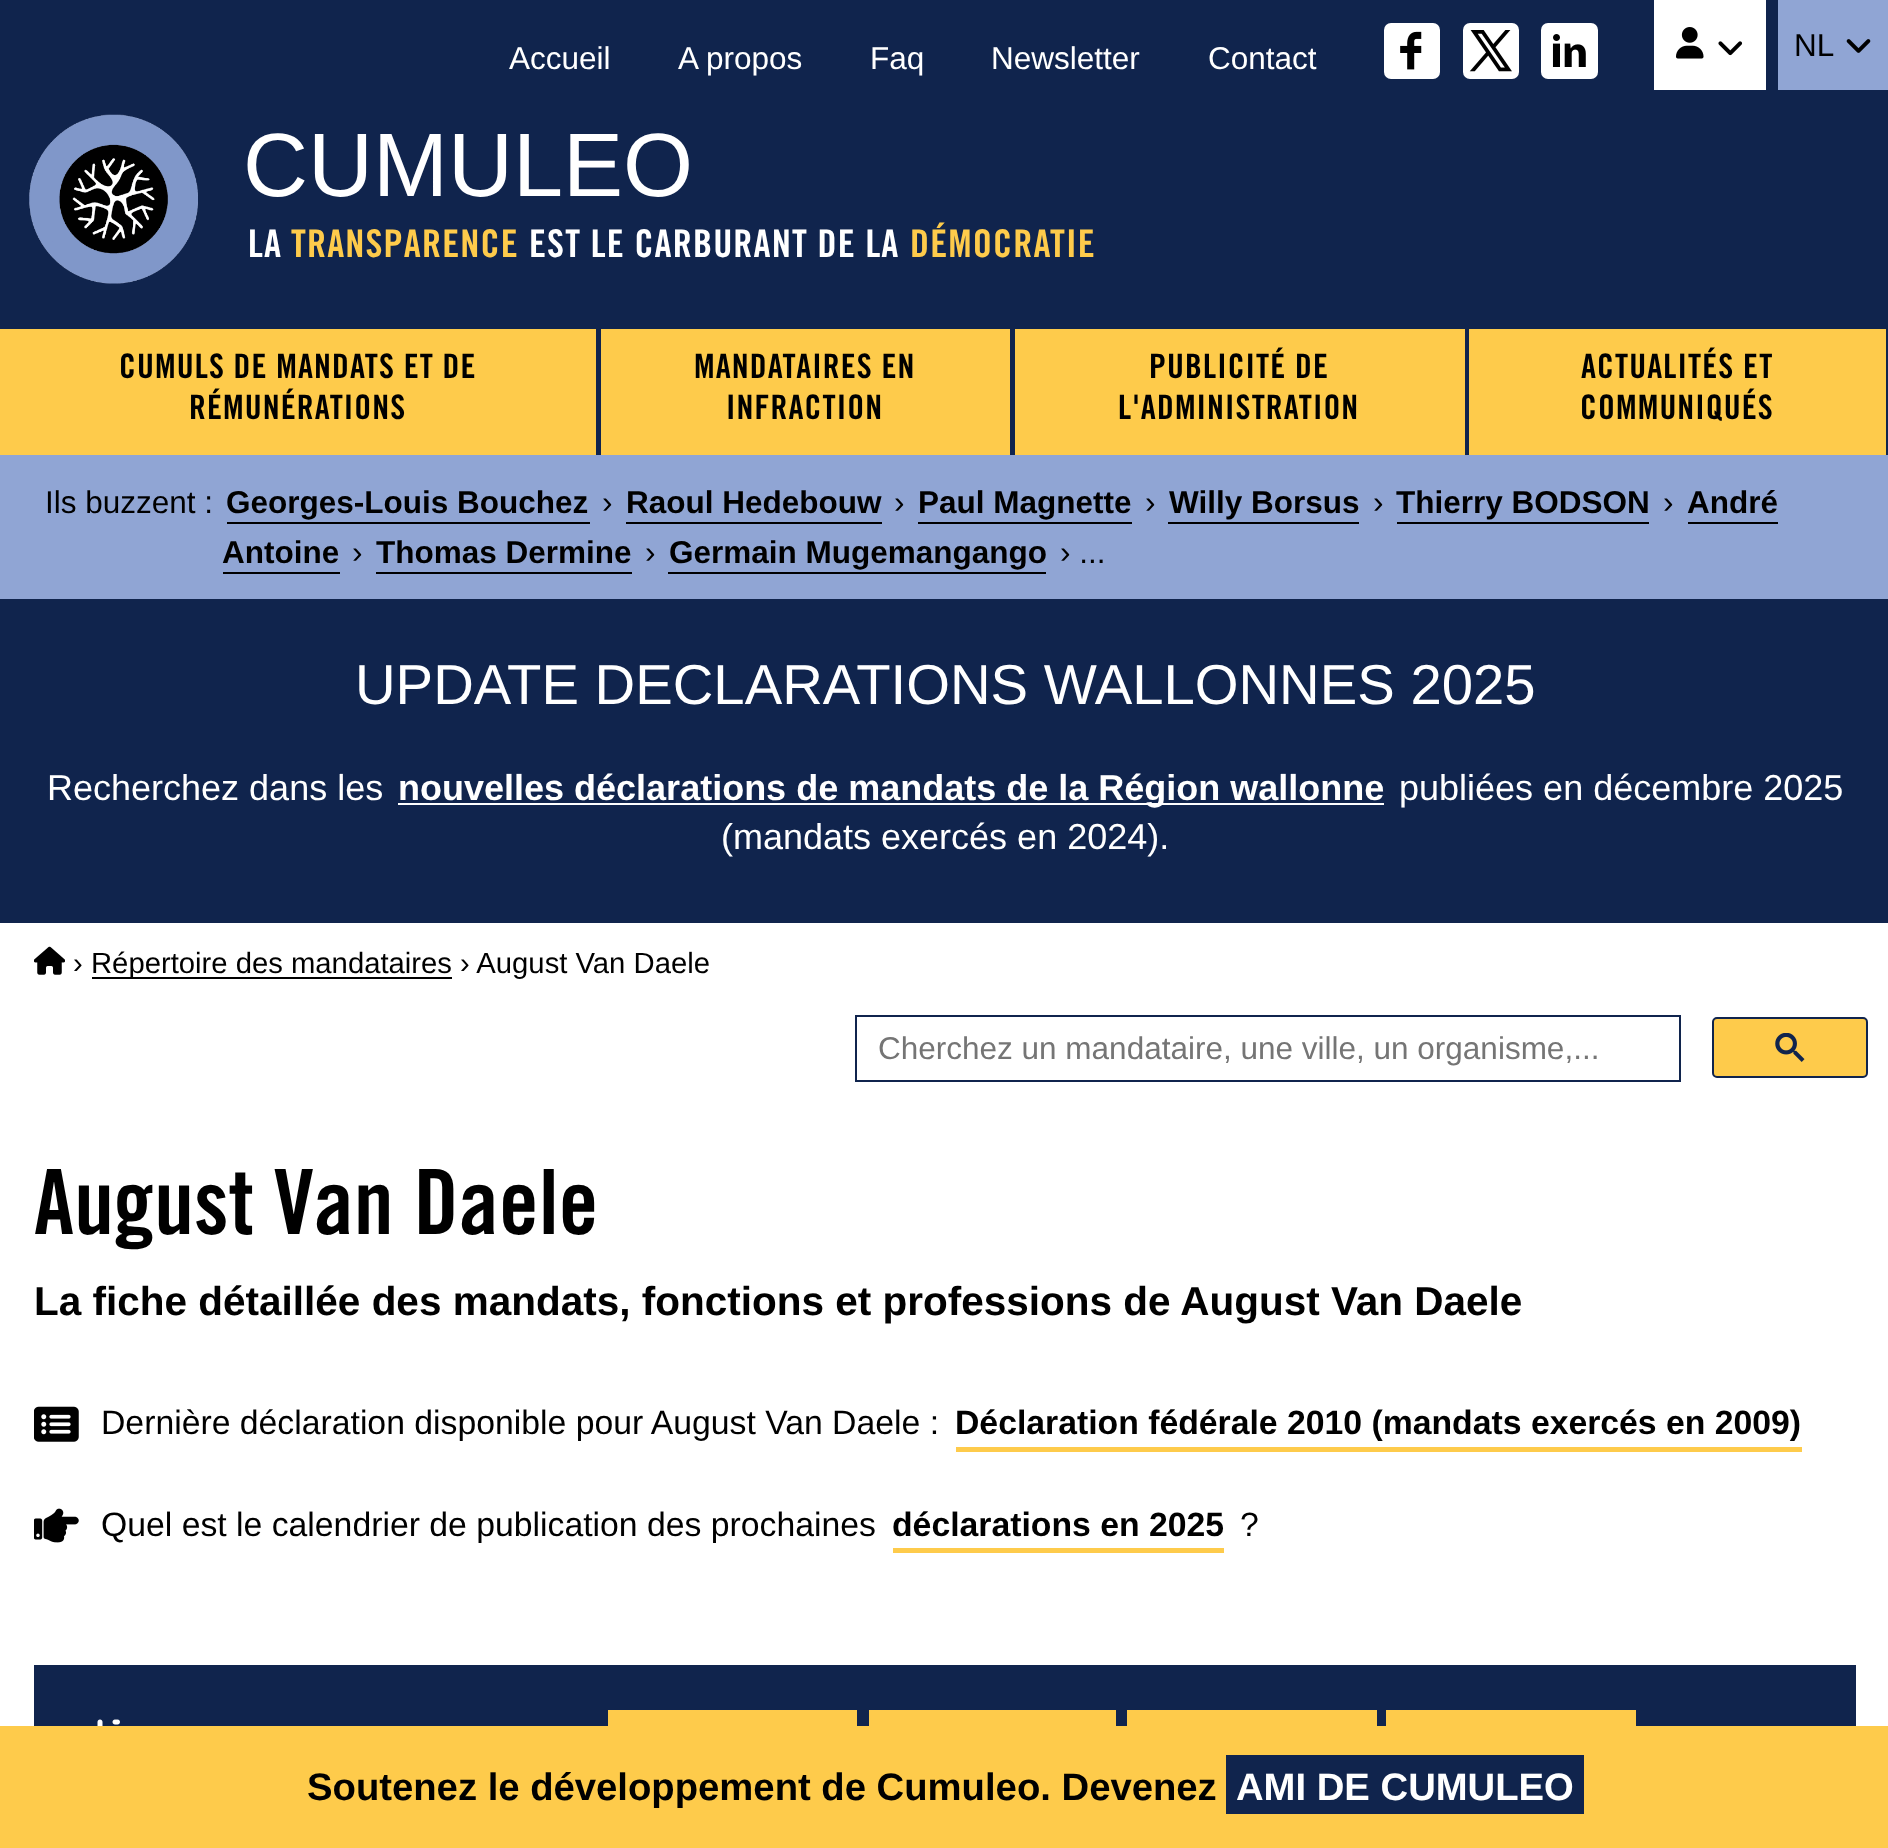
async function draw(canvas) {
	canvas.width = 1888;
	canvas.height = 1848;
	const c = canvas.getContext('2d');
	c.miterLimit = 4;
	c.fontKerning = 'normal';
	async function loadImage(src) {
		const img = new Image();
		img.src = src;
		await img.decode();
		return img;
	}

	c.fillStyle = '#fff';
	c.fillRect(0, 0, 1888, 1848);
	c.fillStyle = '#10244d';
	c.fillRect(0, 0, 1888, 329);
	c.font = '31.5px Liberation Sans';
	c.fillStyle = '#fff';
	for (const [text, x, y] of [
		['Accueil', 509, 69],
		['A propos', 678, 69],
		['Faq', 870, 69],
		['Newsletter', 991, 69],
		['Contact', 1208, 69],
	]) {
		c.fillText(text, x, y);
	}
	c.beginPath();
	c.roundRect(1384, 23, 56, 56, 7);
	c.fill();
	c.drawImage(await loadImage('img1.png'), 1400, 31, 22, 39);
	c.beginPath();
	c.roundRect(1463, 23, 56, 56, 7);
	c.fill();
	c.drawImage(await loadImage('img2.png'), 1469, 30, 43, 42);
	c.beginPath();
	c.roundRect(1541, 23, 57, 56, 7);
	c.fill();
	c.drawImage(await loadImage('img3.png'), 1552, 34, 34, 33);
	c.fillRect(1654, 0, 112, 90);
	c.drawImage(await loadImage('img4.png'), 1676, 27, 28, 32);
	c.drawImage(await loadImage('img5.png'), 1718, 41, 25, 15);
	c.fillStyle = '#90a5d4';
	c.fillRect(1778, 0, 110, 90);
	c.fillStyle = '#000';
	c.fillText('NL', 1794, 56);
	c.drawImage(await loadImage('img6.png'), 1846, 39, 25, 14);
	c.drawImage(await loadImage('img7.png'), 29, 114, 169, 170);
	c.font = '90px Liberation Sans';
	c.fillStyle = '#fff';
	c.fillText('CUMULEO', 243, 196);
	c.letterSpacing = '1.1px';
	c.font = 'bold 38.25px Trade Gothic';
	c.fillText('LA', 248, 257);
	c.fillStyle = '#fecb4b';
	c.fillText('TRANSPARENCE', 291, 257);
	c.fillStyle = '#fff';
	c.fillText('EST LE CARBURANT DE LA', 529, 257);
	c.fillStyle = '#fecb4b';
	c.fillText('DÉMOCRATIE', 910, 257);
	c.fillRect(0, 329, 596, 126);
	c.fillStyle = '#10244d';
	c.fillRect(596, 329, 5, 126);
	c.font = 'bold 33.75px Trade Gothic';
	c.fillStyle = '#000';
	c.fillText('CUMULS DE MANDATS ET DE', 119, 378);
	c.fillText('RÉMUNÉRATIONS', 189, 419);
	c.fillStyle = '#fecb4b';
	c.fillRect(601, 329, 409, 126);
	c.fillStyle = '#10244d';
	c.fillRect(1010, 329, 5, 126);
	c.fillStyle = '#000';
	c.fillText('MANDATAIRES EN', 694, 378);
	c.fillText('INFRACTION', 726, 419);
	c.fillStyle = '#fecb4b';
	c.fillRect(1015, 329, 450, 126);
	c.fillStyle = '#10244d';
	c.fillRect(1465, 329, 4, 126);
	c.fillStyle = '#000';
	c.fillText('PUBLICITÉ DE', 1149, 378);
	c.fillText('L\'ADMINISTRATION', 1118, 419);
	c.fillStyle = '#fecb4b';
	c.fillRect(1469, 329, 417, 126);
	c.fillStyle = '#10244d';
	c.fillRect(1886, 329, 2, 126);
	c.fillStyle = '#000';
	c.fillText('ACTUALITÉS ET', 1581, 378);
	c.fillText('COMMUNIQUÉS', 1580, 419);
	c.fillStyle = '#90a5d4';
	c.fillRect(0, 455, 1888, 144);
	c.letterSpacing = '0px';
	c.font = '31.5px Liberation Sans';
	c.fillStyle = '#000';
	c.fillText('Ils buzzent :', 45, 513);
	c.font = 'bold 31.5px Liberation Sans';
	c.fillText('Georges-Louis Bouchez', 226, 513);
	c.fillRect(227, 522, 363, 2);
	c.font = '31.5px Liberation Sans';
	c.fillText('›', 602, 513);
	c.font = 'bold 31.5px Liberation Sans';
	c.fillText('Raoul Hedebouw', 626, 513);
	c.fillRect(626, 522, 256, 2);
	c.font = '31.5px Liberation Sans';
	c.fillText('›', 894, 513);
	c.font = 'bold 31.5px Liberation Sans';
	c.fillText('Paul Magnette', 918, 513);
	c.fillRect(918, 522, 214, 2);
	c.font = '31.5px Liberation Sans';
	c.fillText('›', 1145, 513);
	c.font = 'bold 31.5px Liberation Sans';
	c.fillText('Willy Borsus', 1169, 513);
	c.fillRect(1168, 522, 191, 2);
	c.font = '31.5px Liberation Sans';
	c.fillText('›', 1373, 513);
	c.font = 'bold 31.5px Liberation Sans';
	c.fillText('Thierry BODSON', 1396, 513);
	c.fillRect(1397, 522, 252, 2);
	c.font = '31.5px Liberation Sans';
	c.fillText('›', 1663, 513);
	c.font = 'bold 31.5px Liberation Sans';
	c.fillText('André', 1687, 513);
	c.fillRect(1688, 522, 90, 2);
	c.fillText('Antoine', 222, 563);
	c.fillRect(223, 572, 117, 2);
	c.font = '31.5px Liberation Sans';
	c.fillText('›', 352, 563);
	c.font = 'bold 31.5px Liberation Sans';
	c.fillText('Thomas Dermine', 376, 563);
	c.fillRect(376, 572, 256, 2);
	c.font = '31.5px Liberation Sans';
	c.fillText('›', 645, 563);
	c.font = 'bold 31.5px Liberation Sans';
	c.fillText('Germain Mugemangango', 669, 563);
	c.fillRect(668, 572, 378, 2);
	c.font = '31.5px Liberation Sans';
	c.fillText('› ...', 1060, 563);
	c.fillStyle = '#10244d';
	c.fillRect(0, 599, 1888, 324);
	c.font = '56.25px Liberation Sans';
	c.fillStyle = '#fff';
	c.fillText('UPDATE DECLARATIONS WALLONNES 2025', 355, 704);
	c.font = '36px Liberation Sans';
	c.fillText('Recherchez dans les', 47, 800);
	c.fillRect(398, 803, 986, 2);
	c.font = 'bold 36px Liberation Sans';
	c.fillText('nouvelles déclarations de mandats de la Région wallonne', 398, 800);
	c.font = '36px Liberation Sans';
	c.fillText('publiées en décembre 2025', 1399, 800);
	c.fillText('(mandats exercés en 2024).', 721, 849);
	c.drawImage(await loadImage('img8.png'), 34, 946, 31, 29);
	c.font = '29.25px Liberation Sans';
	c.fillStyle = '#000';
	c.fillText('›', 73, 973);
	c.fillRect(92, 977, 360, 2);
	c.fillText('Répertoire des mandataires › August Van Daele', 91, 973);
	c.strokeStyle = '#10244d';
	c.lineWidth = 2;
	c.strokeRect(856, 1016, 824, 65);
	c.font = '31.5px Liberation Sans';
	c.fillStyle = '#757575';
	c.fillText('Cherchez un mandataire, une ville, un organisme,...', 878, 1059);
	c.fillStyle = '#fecb4b';
	c.beginPath();
	c.roundRect(1713, 1018, 154, 59, 4);
	c.fill();
	c.stroke();
	c.drawImage(await loadImage('img9.png'), 1775, 1033, 30, 29);
	c.font = 'bold 90px Trade Gothic';
	c.fillStyle = '#000';
	c.fillText('August Van Daele', 34, 1234);
	c.font = 'bold 40.5px Liberation Sans';
	c.fillText('La fiche détaillée des mandats, fonctions et professions de August Van Daele', 34, 1315);
	c.drawImage(await loadImage('img10.png'), 34, 1406, 45, 36);
	c.font = '33.75px Liberation Sans';
	c.fillText('Dernière déclaration disponible pour August Van Daele :', 101, 1434);
	c.font = 'bold 33.75px Liberation Sans';
	c.fillText('Déclaration fédérale 2010 (mandats exercés en 2009)', 955, 1434);
	c.fillStyle = '#fecb4b';
	c.fillRect(956, 1447, 846, 5);
	c.drawImage(await loadImage('img11.png'), 34, 1508, 45, 35);
	c.font = '33.75px Liberation Sans';
	c.fillStyle = '#000';
	c.fillText('Quel est le calendrier de publication des prochaines', 101, 1536);
	c.font = 'bold 33.75px Liberation Sans';
	c.fillText('déclarations en 2025', 892, 1536);
	c.fillStyle = '#fecb4b';
	c.fillRect(893, 1548, 331, 5);
	c.font = '33.75px Liberation Sans';
	c.fillStyle = '#000';
	c.fillText('?', 1240, 1536);
	c.fillStyle = '#10244d';
	c.fillRect(34, 1665, 1822, 61);
	c.drawImage(await loadImage('img12.png'), 97, 1719, 23, 7);
	for (const [x, y, w, h, color] of [
		[608, 1710, 249, 16, '#fecb4b'],
		[869, 1710, 247, 16, '#fecb4b'],
		[1127, 1710, 250, 16, '#fecb4b'],
		[1386, 1710, 250, 16, '#fecb4b'],
		[0, 1726, 1888, 122, '#fecb4b'],
	]) {
		c.fillStyle = color;
		c.fillRect(x, y, w, h);
	}
	c.font = 'bold 38.25px Liberation Sans';
	c.fillStyle = '#000';
	c.fillText('Soutenez le développement de Cumuleo. Devenez', 307, 1800);
	c.fillStyle = '#10244d';
	c.fillRect(1226, 1755, 358, 59);
	c.fillStyle = '#fff';
	c.fillText('AMI DE CUMULEO', 1236, 1800);
}

draw(document.querySelector('canvas'));
